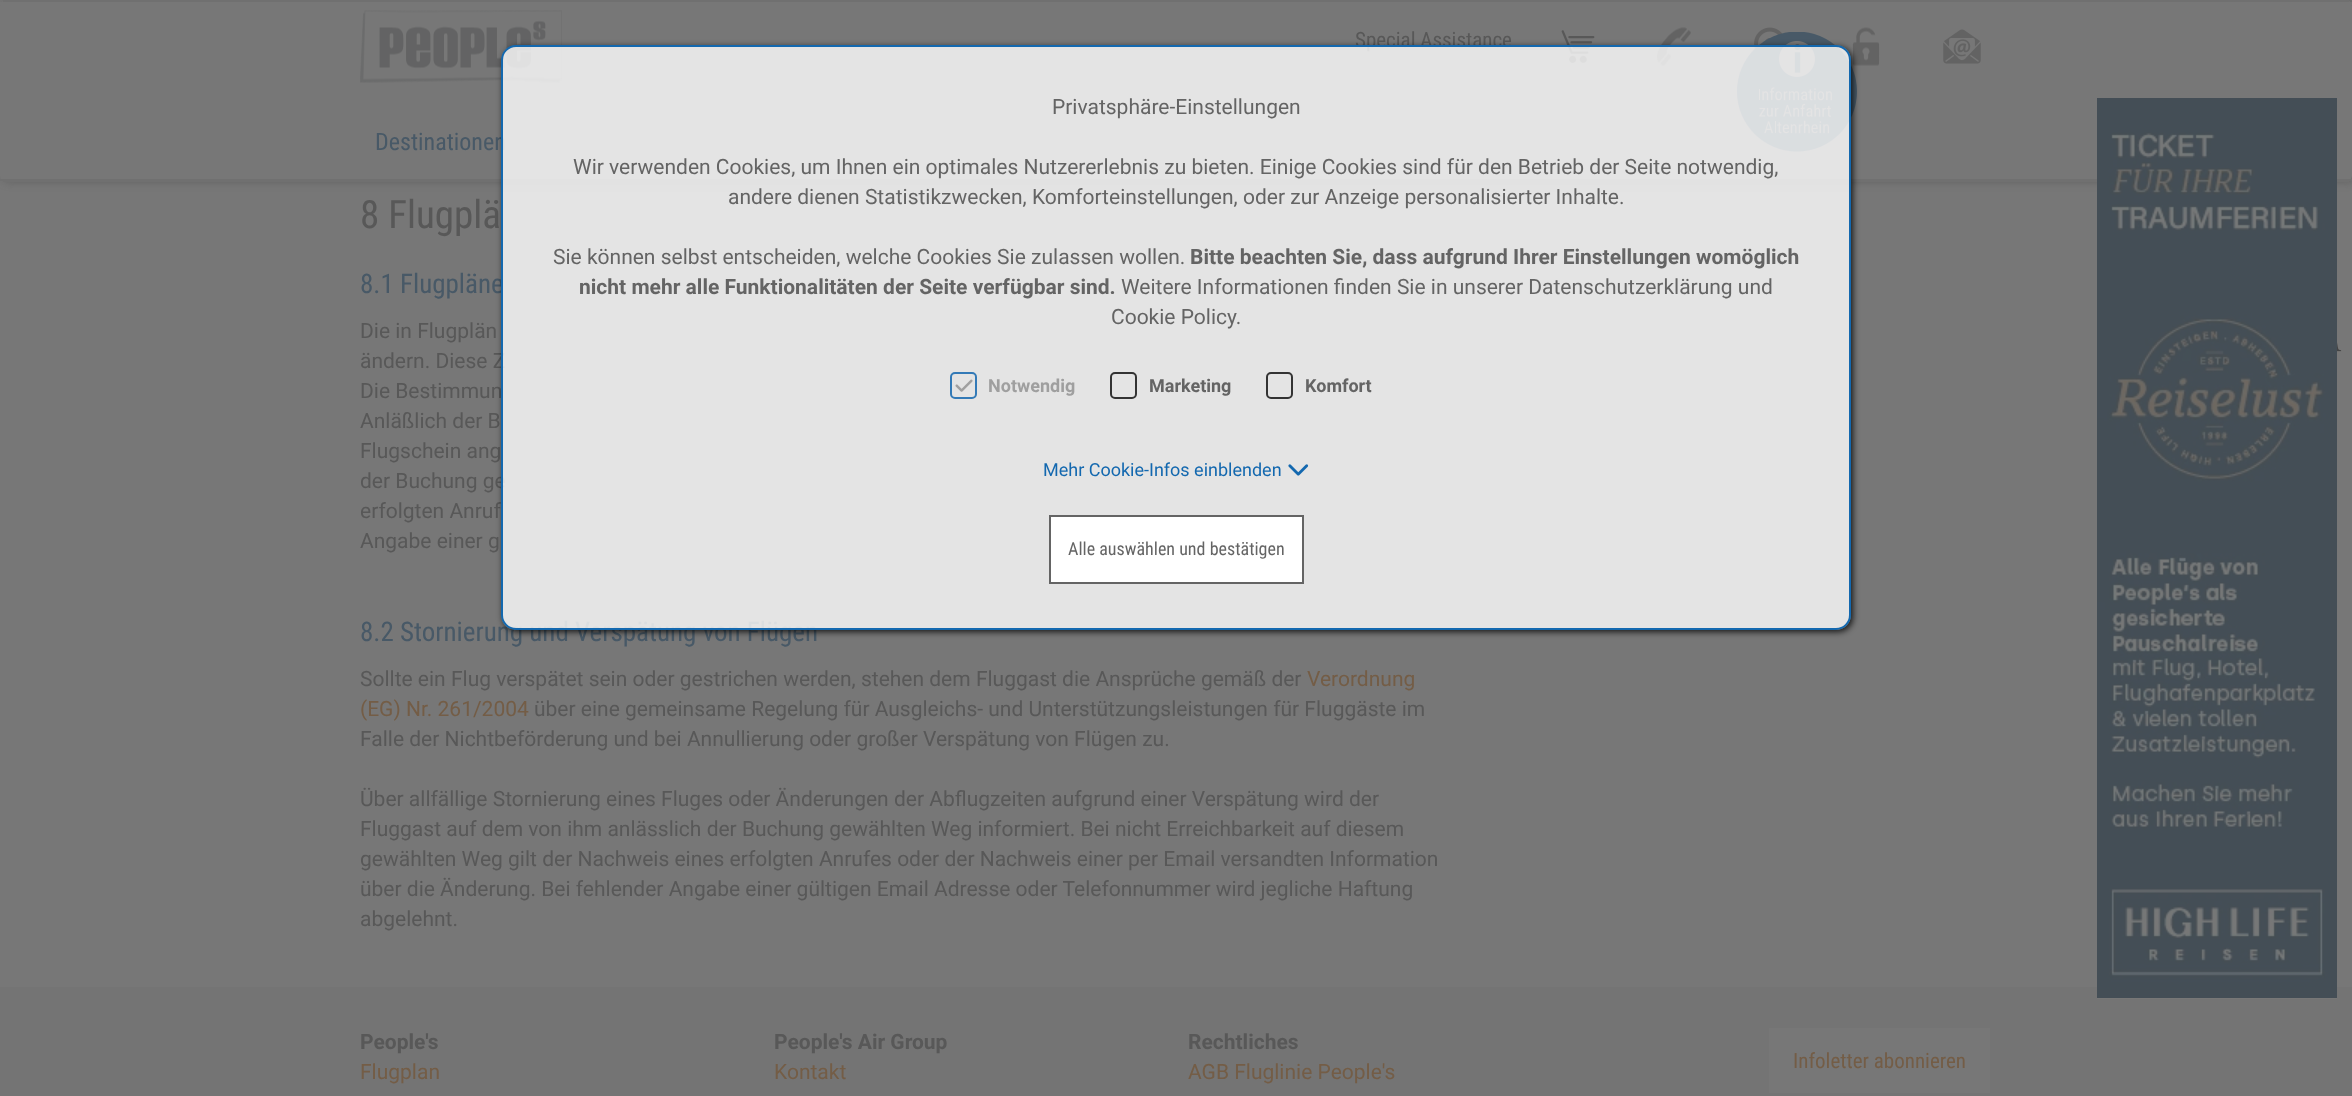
async function draw(canvas) {
	canvas.width = 2352;
	canvas.height = 1096;
	const c = canvas.getContext('2d');
	c.miterLimit = 4;
	c.fontKerning = 'normal';
	async function loadImage(src) {
		const img = new Image();
		img.src = src;
		await img.decode();
		return img;
	}

	c.fillStyle = '#777';
	c.fillRect(0, 0, 2352, 1096);
	c.fillStyle = '#44444466';
	c.filter = 'blur(4px)';
	c.beginPath();
	c.roundRect(3, 0, 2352, 182, 6);
	c.fill();
	c.filter = 'none';
	c.fillStyle = '#777';
	c.beginPath();
	c.roundRect(0, 0, 2352, 182, 6);
	c.fill();
	for (const [x, y, w, h, color] of [
		[3, 0, 2346, 2, '#707070'],
		[3, 181, 2346, 1, '#707070'],
		[0, 2, 2352, 3, '#777'],
	]) {
		c.fillStyle = color;
		c.fillRect(x, y, w, h);
	}
	c.font = '21px Roboto Condensed';
	c.fillStyle = '#585858';
	c.fillText('Special Assistance', 1355, 47);
	c.drawImage(await loadImage('img1.png'), 1561, 30, 34, 33);
	c.drawImage(await loadImage('img2.png'), 1657, 27, 34, 39);
	c.drawImage(await loadImage('img3.png'), 1754, 27, 29, 22);
	c.drawImage(await loadImage('img4.png'), 1852, 27, 28, 39);
	c.drawImage(await loadImage('img5.png'), 1943, 29, 38, 35);
	c.fillStyle = '#707070';
	c.fillRect(0, 179, 2352, 2);
	c.drawImage(await loadImage('img6.png'), 360, 10, 202, 73);
	c.font = '24px Roboto Condensed';
	c.fillStyle = '#485967';
	c.fillText('Destinationen', 375, 150);
	c.drawImage(await loadImage('img7.png'), 1737, 32, 120, 120);
	c.font = '39px Roboto Condensed';
	c.fillStyle = '#585858';
	c.fillText('8 Flugplä', 360, 228);
	c.font = '27px Roboto Condensed';
	c.fillStyle = '#485967';
	c.fillText('8.1 Flugpläne', 360, 293);
	c.font = '21px Roboto';
	c.fillStyle = '#585858';
	for (const [text, x, y] of [
		['Die in Flugplän', 360, 338],
		['ändern. Diese Z', 360, 368],
		['Die Bestimmun', 360, 398],
		['Anläßlich der B', 360, 428],
		['Flugschein ang', 360, 458],
		['der Buchung ge', 360, 488],
		['erfolgten Anruf', 360, 518],
		['Angabe einer g', 360, 548],
	]) {
		c.fillText(text, x, y);
	}
	c.font = '27px Roboto Condensed';
	c.fillStyle = '#485967';
	c.fillText('8.2 Stornierung und Verspätung von Flügen', 360, 641);
	c.font = '21px Roboto';
	c.fillStyle = '#585858';
	c.fillText('Sollte ein Flug verspätet sein oder gestrichen werden, stehen dem Fluggast die Ansprüche gemäß der', 360, 686);
	c.fillStyle = '#745d46';
	c.fillText('Verordnung', 1307, 686);
	c.fillText('(EG) Nr. 261/2004', 360, 716);
	c.fillStyle = '#585858';
	for (const [text, x, y] of [
		['über eine gemeinsame Regelung für Ausgleichs- und Unterstützungsleistungen für Fluggäste im', 534, 716],
		['Falle der Nichtbeförderung und bei Annullierung oder großer Verspätung von Flügen zu.', 360, 746],
		['Über allfällige Stornierung eines Fluges oder Änderungen der Abflugzeiten aufgrund einer Verspätung wird der', 360, 806],
		['Fluggast auf dem von ihm anlässlich der Buchung gewählten Weg informiert. Bei nicht Erreichbarkeit auf diesem', 360, 836],
		['gewählten Weg gilt der Nachweis eines erfolgten Anrufes oder der Nachweis einer per Email versandten Information', 360, 866],
		['über die Änderung. Bei fehlender Angabe einer gültigen Email Adresse oder Telefonnummer wird jegliche Haftung', 360, 896],
		['abgelehnt.', 360, 926],
	]) {
		c.fillText(text, x, y);
	}
	c.drawImage(await loadImage('img8.png'), 2337, 310, 5, 46);
	c.fillStyle = '#747474';
	c.fillRect(0, 987, 2352, 109);
	c.font = 'bold 21px Roboto';
	c.fillStyle = '#585858';
	c.fillText('People\'s', 360, 1049);
	c.font = '21px Roboto';
	c.fillStyle = '#745d46';
	c.fillText('Flugplan', 360, 1079);
	c.font = 'bold 21px Roboto';
	c.fillStyle = '#585858';
	c.fillText('People\'s Air Group', 774, 1049);
	c.font = '21px Roboto';
	c.fillStyle = '#745d46';
	c.fillText('Kontakt', 774, 1079);
	c.font = 'bold 21px Roboto';
	c.fillStyle = '#585858';
	c.fillText('Rechtliches', 1188, 1049);
	c.font = '21px Roboto';
	c.fillStyle = '#745d46';
	c.fillText('AGB Fluglinie People\'s', 1188, 1079);
	c.fillStyle = '#777';
	c.fillRect(1769, 1028, 221, 65);
	c.font = '21px Roboto Condensed';
	c.fillStyle = '#745d46';
	c.fillText('Infoletter abonnieren', 1793, 1068);
	c.save();
	c.beginPath();
	c.moveTo(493, 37);
	c.lineTo(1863, 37);
	c.lineTo(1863, 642);
	c.lineTo(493, 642);
	c.closePath();
	c.moveTo(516, 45);
	c.lineTo(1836, 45);
	c.bezierCurveTo(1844.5, 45, 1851, 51.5, 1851, 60);
	c.lineTo(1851, 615);
	c.bezierCurveTo(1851, 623.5, 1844.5, 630, 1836, 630);
	c.lineTo(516, 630);
	c.bezierCurveTo(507.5, 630, 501, 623.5, 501, 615);
	c.lineTo(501, 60);
	c.bezierCurveTo(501, 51.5, 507.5, 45, 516, 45);
	c.closePath();
	c.clip('evenodd');
	c.fillStyle = '#000000cc';
	c.filter = 'blur(3px)';
	c.beginPath();
	c.roundRect(503, 47, 1350, 585, 15);
	c.fill();
	c.filter = 'none';
	c.restore();
	c.fillStyle = '#ffffffcc';
	c.beginPath();
	c.roundRect(502, 46, 1348, 583, 14);
	c.fill();
	c.strokeStyle = '#1368af';
	c.lineWidth = 2;
	c.stroke();
	c.font = '21px Roboto';
	c.fillStyle = '#646464';
	for (const [text, x, y] of [
		['Privatsphäre-Einstellungen', 1052, 114],
		['Wir verwenden Cookies, um Ihnen ein optimales Nutzererlebnis zu bieten. Einige Cookies sind für den Betrieb der Seite notwendig,', 573, 174],
		['andere dienen Statistikzwecken, Komforteinstellungen, oder zur Anzeige personalisierter Inhalte.', 728, 204],
		['Sie können selbst entscheiden, welche Cookies Sie zulassen wollen.', 553, 264],
	]) {
		c.fillText(text, x, y);
	}
	c.font = 'bold 21px Roboto';
	c.fillText('Bitte beachten Sie, dass aufgrund Ihrer Einstellungen womöglich', 1190, 264);
	c.fillText('nicht mehr alle Funktionalitäten der Seite verfügbar sind.', 579, 294);
	c.font = '21px Roboto';
	c.fillText('Weitere Informationen finden Sie in unserer Datenschutzerklärung und', 1121, 294);
	c.fillText('Cookie Policy.', 1111, 324);
	c.beginPath();
	c.roundRect(951, 373, 25, 25, 4);
	c.strokeStyle = '#337ab7';
	c.stroke();
	c.drawImage(await loadImage('img9.png'), 955, 379, 18, 13);
	c.font = 'bold 18px Roboto';
	c.fillStyle = '#9f9f9f';
	c.fillText('Notwendig', 988, 392);
	c.beginPath();
	c.roundRect(1111, 373, 25, 25, 4);
	c.strokeStyle = '#333';
	c.stroke();
	c.fillStyle = '#646464';
	c.fillText('Marketing', 1149, 392);
	c.beginPath();
	c.roundRect(1267, 373, 25, 25, 4);
	c.stroke();
	c.fillText('Komfort', 1305, 392);
	c.font = '18px Roboto';
	c.fillStyle = '#1368af';
	c.fillText('Mehr Cookie-Infos einblenden', 1043, 476);
	c.drawImage(await loadImage('img10.png'), 1288, 464, 21, 12);
	c.fillStyle = '#fff';
	c.beginPath();
	c.rect(1050, 516, 253, 67);
	c.fill();
	c.strokeStyle = '#646464';
	c.stroke();
	c.font = '18px Roboto Condensed';
	c.fillStyle = '#646464';
	c.fillText('Alle auswählen und bestätigen', 1068, 555);
	c.fillStyle = '#777';
	c.fillRect(2097, 998, 240, 1);
	c.drawImage(await loadImage('img11.png'), 2097, 98, 240, 900);
}

draw(document.querySelector('canvas'));
